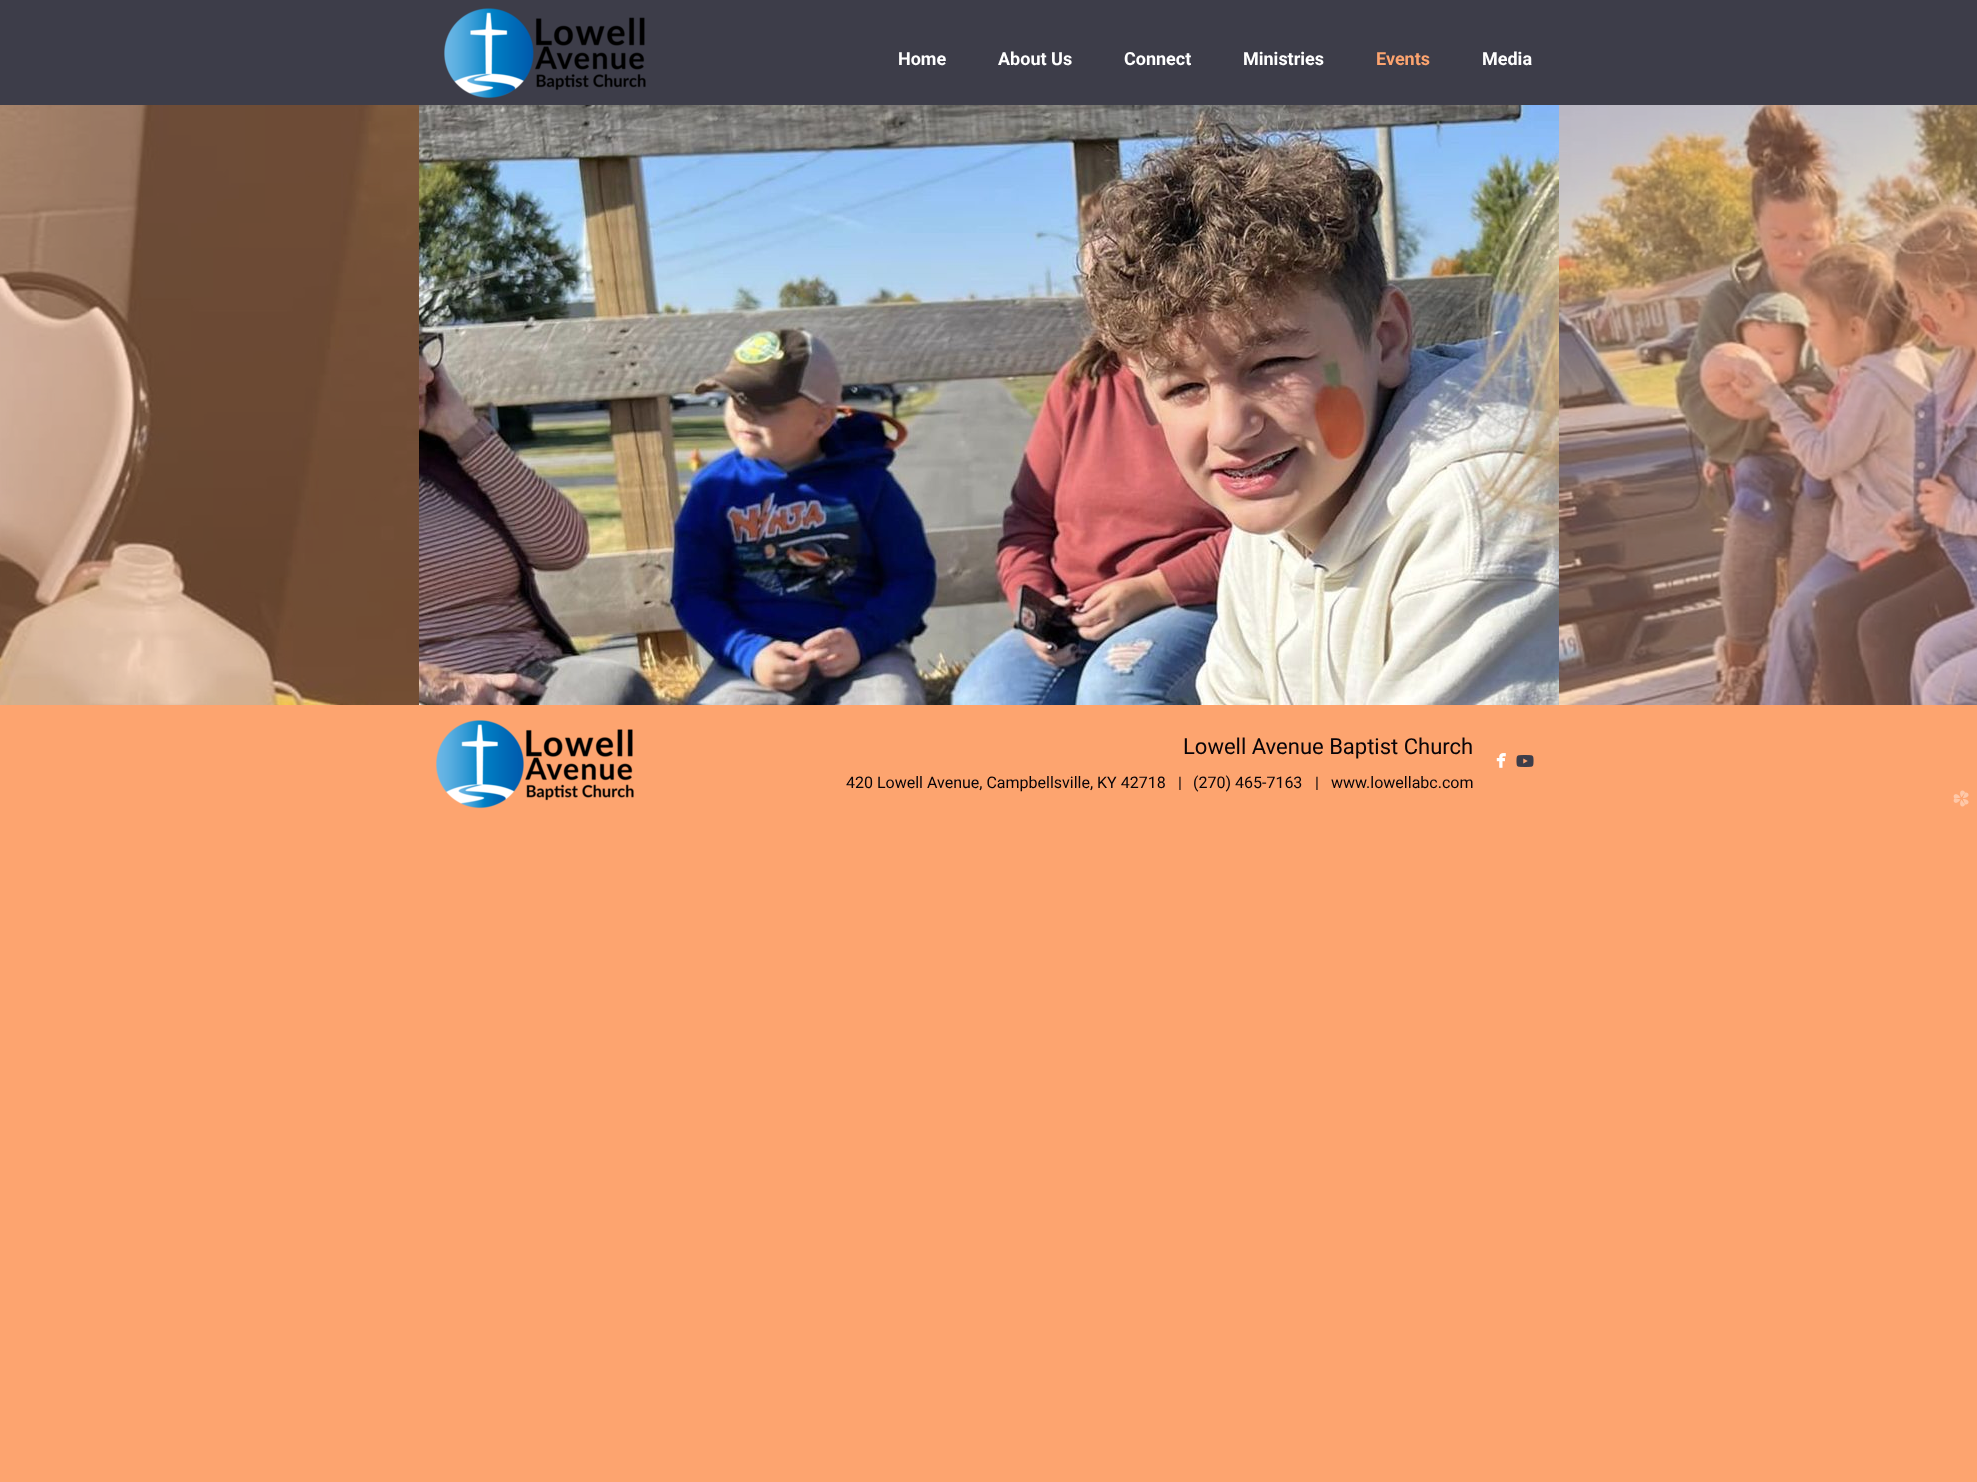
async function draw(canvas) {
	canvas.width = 1977;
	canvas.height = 1482;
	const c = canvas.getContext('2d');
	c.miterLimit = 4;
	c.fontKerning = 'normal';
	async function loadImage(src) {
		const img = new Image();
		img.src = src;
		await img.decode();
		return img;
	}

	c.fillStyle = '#fda46f';
	c.fillRect(0, 0, 1977, 1482);
	c.fillStyle = '#3d3d49';
	c.fillRect(0, 0, 1977, 105);
	c.drawImage(await loadImage('img1.png'), 444, 8, 202, 90);
	c.font = 'bold 18px Roboto';
	c.fillStyle = '#fff';
	for (const [text, x, y] of [
		['Home', 898, 65],
		['About Us', 998, 65],
		['Connect', 1124, 65],
		['Ministries', 1243, 65],
	]) {
		c.fillText(text, x, y);
	}
	c.fillStyle = '#fda46f';
	c.fillText('Events', 1376, 65);
	c.fillStyle = '#fff';
	c.fillText('Media', 1482, 65);
	c.drawImage(await loadImage('img2.png'), 0, 105, 419, 600);
	c.drawImage(await loadImage('img3.png'), 419, 105, 1140, 600);
	c.drawImage(await loadImage('img4.png'), 1559, 105, 418, 600);
	c.drawImage(await loadImage('img5.png'), 436, 720, 198, 89);
	c.font = '22px Roboto';
	c.fillStyle = '#080408';
	c.fillText('Lowell Avenue Baptist Church', 1183, 754);
	c.font = '16px Roboto';
	for (const [text, x, y] of [
		['420 Lowell Avenue, Campbellsville, KY 42718', 846, 788],
		['|', 1178, 788],
		['(270) 465-7163', 1193, 788],
		['|', 1315, 788],
		['www.lowellabc.com', 1331, 788],
	]) {
		c.fillText(text, x, y);
	}
	c.drawImage(await loadImage('img6.png'), 1496, 753, 10, 15);
	c.drawImage(await loadImage('img7.png'), 1516, 755, 18, 12);
	c.drawImage(await loadImage('img8.png'), 1953, 790, 16, 17);
}

draw(document.querySelector('canvas'));
